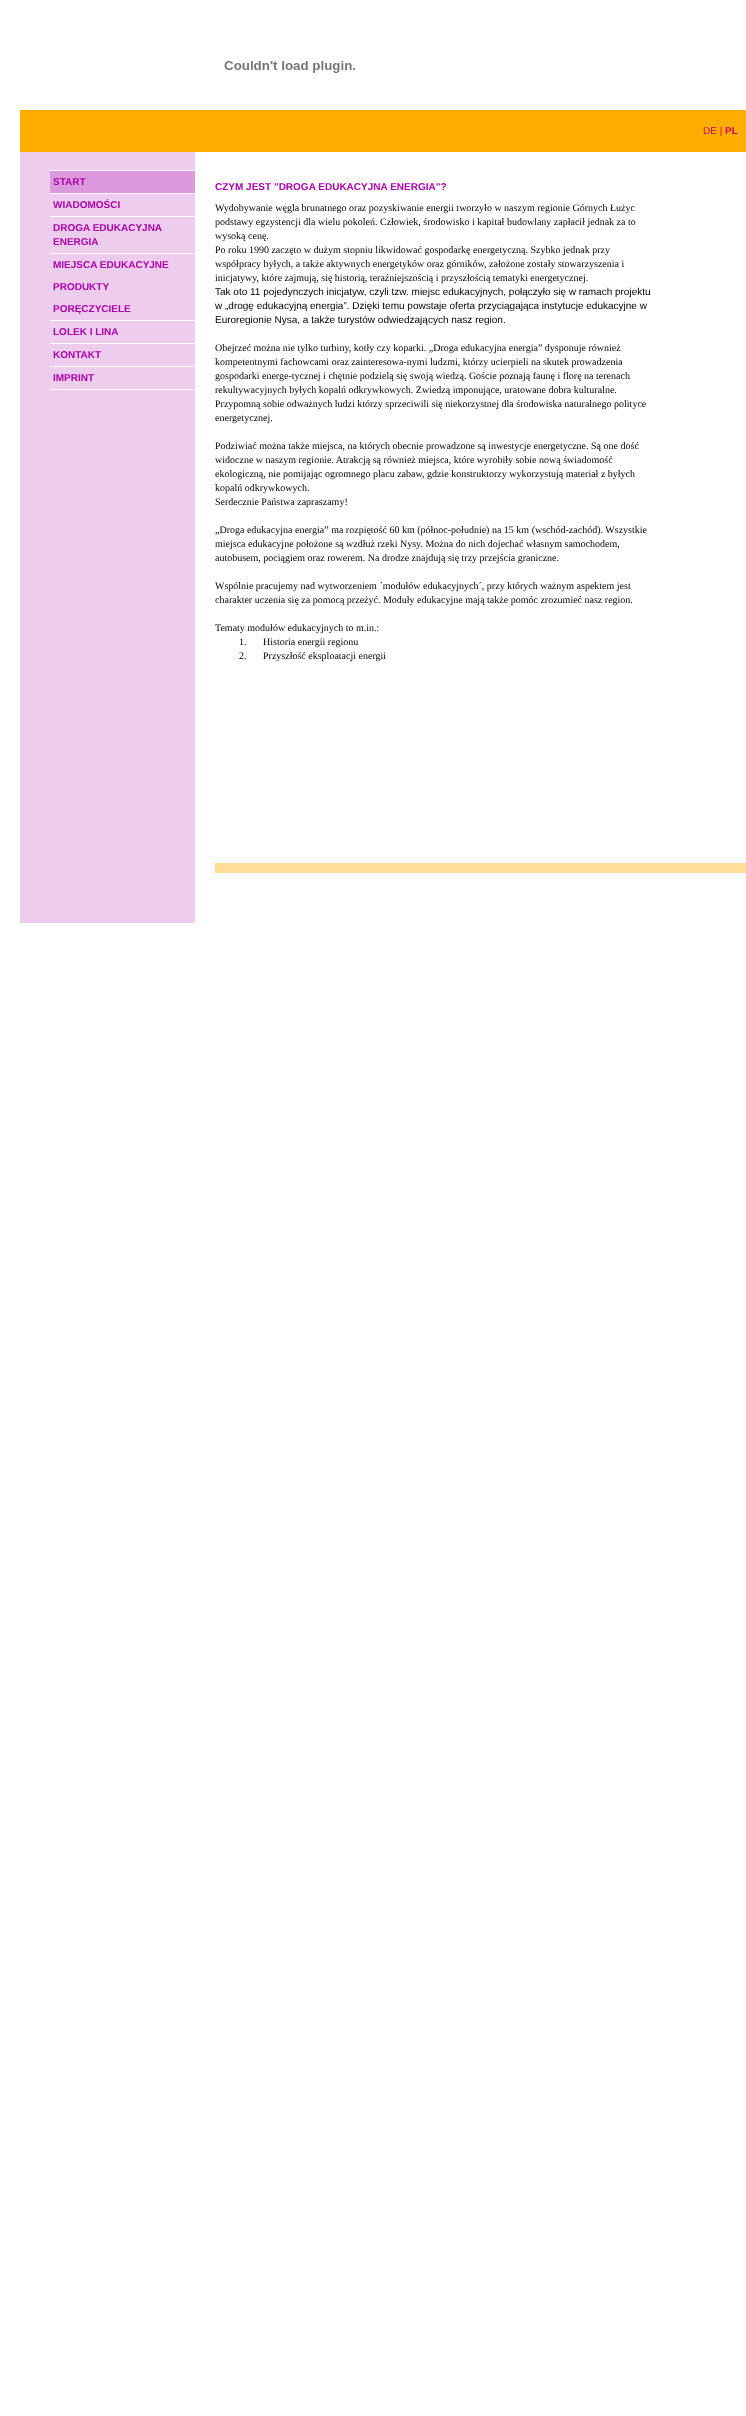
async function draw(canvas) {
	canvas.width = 746;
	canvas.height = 2416;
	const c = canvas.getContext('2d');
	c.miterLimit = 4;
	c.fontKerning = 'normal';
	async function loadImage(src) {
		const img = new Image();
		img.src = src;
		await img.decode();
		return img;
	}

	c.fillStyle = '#fff';
	c.fillRect(0, 0, 746, 2416);
	c.drawImage(await loadImage('img1.png'), 224, 61, 131, 12);
	c.fillStyle = '#ffad00';
	c.fillRect(20, 110, 726, 42);
	c.font = '10px Liberation Sans';
	c.fillStyle = '#cc0057';
	c.fillText('DE |', 703, 134);
	c.font = 'bold 10px Liberation Sans';
	c.fillText('PL', 725, 134);
	for (const [x, y, w, h, color] of [
		[20, 152, 175, 771, '#ece'],
		[50, 170, 145, 1, '#fff'],
		[50, 171, 145, 22, '#d9d'],
		[50, 193, 145, 1, '#fff'],
	]) {
		c.fillStyle = color;
		c.fillRect(x, y, w, h);
	}
	c.fillStyle = '#a900a9';
	c.fillText('START', 53, 185);
	c.fillStyle = '#fff';
	c.fillRect(50, 216, 145, 1);
	c.fillStyle = '#a900a9';
	c.fillText('WIADOMOŚCI', 53, 208);
	c.fillStyle = '#fff';
	c.fillRect(50, 253, 145, 1);
	c.fillStyle = '#a900a9';
	for (const [text, x, y] of [
		['DROGA EDUKACYJNA', 53, 231],
		['ENERGIA', 53, 245],
		['MIEJSCA EDUKACYJNE', 53, 268],
		['PRODUKTY', 53, 290],
	]) {
		c.fillText(text, x, y);
	}
	c.fillStyle = '#fff';
	c.fillRect(50, 320, 145, 1);
	c.fillStyle = '#a900a9';
	c.fillText('PORĘCZYCIELE', 53, 312);
	c.fillStyle = '#fff';
	c.fillRect(50, 343, 145, 1);
	c.fillStyle = '#a900a9';
	c.fillText('LOLEK I LINA', 53, 335);
	c.fillStyle = '#fff';
	c.fillRect(50, 366, 145, 1);
	c.fillStyle = '#a900a9';
	c.fillText('KONTAKT', 53, 358);
	c.fillStyle = '#fff';
	c.fillRect(50, 389, 145, 1);
	c.fillStyle = '#a900a9';
	c.fillText('IMPRINT', 53, 381);
	c.fillStyle = '#ffde99';
	c.fillRect(215, 863, 531, 10);
	c.fillStyle = '#a900a9';
	c.fillText('CZYM JEST "DROGA EDUKACYJNA ENERGIA"?', 215, 190);
	c.font = '10px Liberation Serif';
	c.fillStyle = '#000';
	for (const [text, x, y] of [
		['Wydobywanie węgla brunatnego oraz pozyskiwanie energii tworzyło w naszym regionie Górnych Łużyc', 215, 211],
		['podstawy egzystencji dla wielu pokoleń. Człowiek, środowisko i kapitał budowlany zapłacił jednak za to', 215, 225],
		['wysoką cenę.', 215, 239],
		['Po roku 1990 zaczęto w dużym stopniu likwidować gospodarkę energetyczną. Szybko jednak przy', 215, 253],
		['współpracy byłych, a także aktywnych energetyków oraz górników, założone zostały stowarzyszenia i', 215, 267],
		['inicjatywy, które zajmują, się historią, teraźniejszością i przyszłością tematyki energetycznej.', 215, 281],
	]) {
		c.fillText(text, x, y);
	}
	c.font = '10px Liberation Sans';
	for (const [text, x, y] of [
		['Tak oto 11 pojedynczych inicjatyw, czyli tzw. miejsc edukacyjnych, połączyło się w ramach projektu', 215, 295],
		['w „drogę edukacyjną energia”. Dzięki temu powstaje oferta przyciągająca instytucje edukacyjne w', 215, 309],
		['Euroregionie Nysa, a także turystów odwiedzających nasz region.', 215, 323],
	]) {
		c.fillText(text, x, y);
	}
	c.font = '10px Liberation Serif';
	for (const [text, x, y] of [
		['Obejrzeć można nie tylko turbiny, kotły czy koparki. „Droga edukacyjna energia” dysponuje również', 215, 351],
		['kompetentnymi fachowcami oraz zainteresowa-nymi ludzmi, którzy ucierpieli na skutek prowadzenia', 215, 365],
		['gospodarki energe-tycznej i chętnie podzielą się swoją wiedzą. Goście poznają faunę i florę na terenach', 215, 379],
		['rekultywacyjnych byłych kopalń odkrywkowych. Zwiedzą imponujące, uratowane dobra kulturalne.', 215, 393],
		['Przypomną sobie odważnych ludzi którzy sprzeciwili się niekorzystnej dla środowiska naturalnego polityce', 215, 407],
		['energetycznej.', 215, 421],
		['Podziwiać można także miejsca, na których obecnie prowadzone są inwestycje energetyczne. Są one dość', 215, 449],
		['widoczne w naszym regionie. Atrakcją są również miejsca, które wyrobiły sobie nową świadomość', 215, 463],
		['ekologiczną, nie pomijając ogromnego placu zabaw, gdzie konstruktorzy wykorzystują materiał z byłych', 215, 477],
		['kopalń odkrywkowych.', 215, 491],
		['Serdecznie Państwa zapraszamy!', 215, 505],
		['„Droga edukacyjna energia” ma rozpiętość 60 km (północ-południe) na 15 km (wschód-zachód). Wszystkie', 215, 533],
		['miejsca edukacyjne położone są wzdłuż rzeki Nysy. Można do nich dojechać własnym samochodem,', 215, 547],
		['autobusem, pociągiem oraz rowerem. Na drodze znajdują się trzy przejścia graniczne.', 215, 561],
		['Wspólnie pracujemy nad wytworzeniem ´modułów edukacyjnych´, przy których ważnym aspektem jest', 215, 589],
		['charakter uczenia się za pomocą przeżyć. Moduły edukacyjne mają także pomóc zrozumieć nasz region.', 215, 603],
		['Tematy modułów edukacyjnych to m.in.:', 215, 631],
		['1.', 239, 645],
		['Historia energii regionu', 263, 645],
		['2.', 239, 659],
		['Przyszłość eksploatacji energii', 263, 659],
	]) {
		c.fillText(text, x, y);
	}
}

draw(document.querySelector('canvas'));
